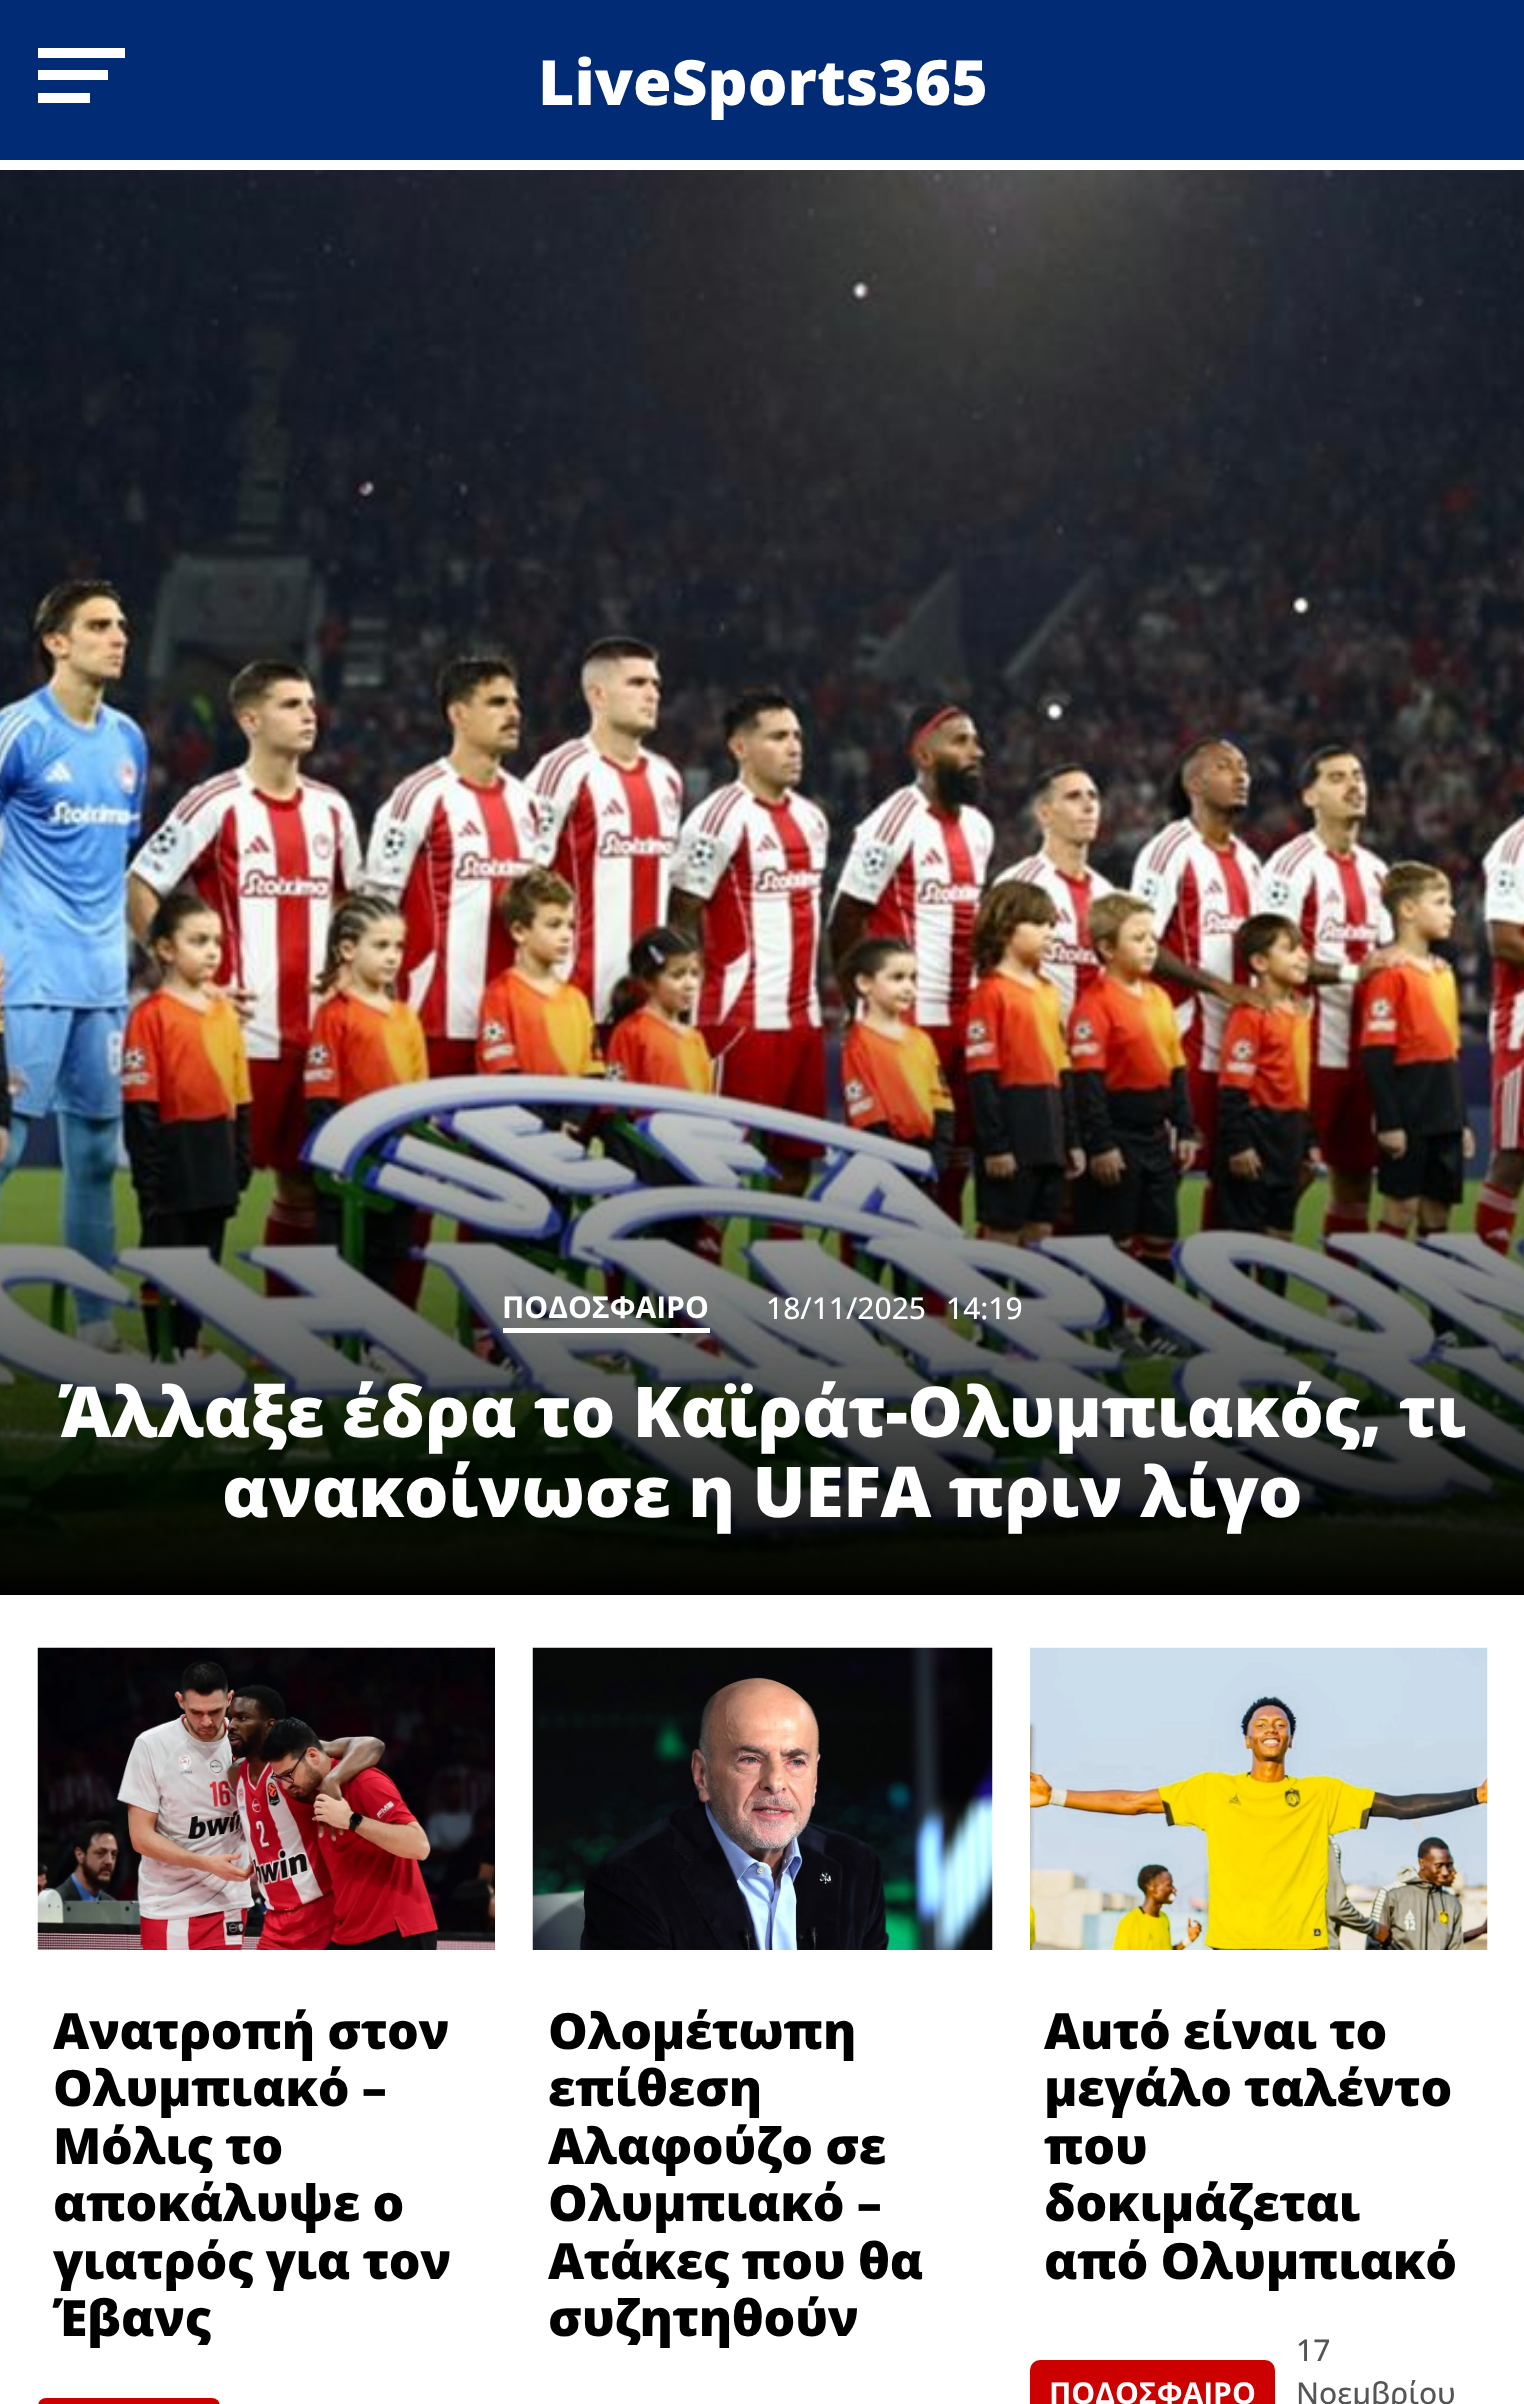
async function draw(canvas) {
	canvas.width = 1524;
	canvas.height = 2404;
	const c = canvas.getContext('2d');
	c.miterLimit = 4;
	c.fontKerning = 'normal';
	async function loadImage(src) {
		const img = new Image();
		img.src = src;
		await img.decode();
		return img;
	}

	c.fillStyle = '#fff';
	c.fillRect(0, 0, 1524, 2404);
	for (const [x, y, w, h, color] of [
		[0, 0, 1524, 160, '#012b74'],
		[38, 48, 87, 10, '#fff'],
		[38, 70, 70, 10, '#fff'],
		[38, 93, 52, 10, '#fff'],
	]) {
		c.fillStyle = color;
		c.fillRect(x, y, w, h);
	}
	c.font = '800 62.5px Open Sans';
	c.fillText('LiveSports365', 538, 105);
	c.drawImage(await loadImage('img1.png'), 0, 170, 1524, 1425);
	c.font = 'bold 30px Open Sans';
	c.fillText('ΠΟΔΟΣΦΑΙΡΟ', 502, 1318);
	c.fillRect(503, 1328, 207, 5);
	c.font = '500 30px Open Sans';
	c.fillText('18/11/2025', 766, 1319);
	c.fillText('14:19', 946, 1319);
	c.letterSpacing = '-0.4px';
	c.font = '800 70px Open Sans';
	c.fillText('Άλλαξε έδρα το Καϊράτ-Ολυμπιακός, τι', 58, 1437);
	c.fillText('ανακοίνωσε η UEFA πριν λίγο', 222, 1517);
	c.drawImage(await loadImage('img2.png'), 37, 1647, 458, 303);
	c.font = '800 50px Open Sans';
	c.fillStyle = '#000';
	for (const [text, x, y] of [
		['Ανατροπή στον', 53, 2049],
		['Ολυμπιακό –', 53, 2106],
		['Μόλις το', 53, 2164],
		['αποκάλυψε ο', 53, 2221],
		['γιατρός για τον', 53, 2279],
		['Έβανς', 53, 2336],
	]) {
		c.fillText(text, x, y);
	}
	c.fillStyle = '#cd0000';
	c.beginPath();
	c.roundRect(38, 2398, 182, 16, 10);
	c.fill();
	c.drawImage(await loadImage('img3.png'), 532, 1647, 461, 303);
	c.fillStyle = '#000';
	for (const [text, x, y] of [
		['Ολομέτωπη', 548, 2049],
		['επίθεση', 548, 2106],
		['Αλαφούζο σε', 548, 2164],
		['Ολυμπιακό –', 548, 2221],
		['Ατάκες που θα', 548, 2279],
		['συζητηθούν', 548, 2336],
	]) {
		c.fillText(text, x, y);
	}
	c.drawImage(await loadImage('img4.png'), 1030, 1647, 458, 303);
	for (const [text, x, y] of [
		['Αuτό είναι το', 1044, 2049],
		['μεγάλο ταλέντο', 1044, 2106],
		['που', 1044, 2164],
		['δοκιμάζεται', 1044, 2221],
		['από Ολυμπιακό', 1044, 2279],
	]) {
		c.fillText(text, x, y);
	}
	c.fillStyle = '#cd0000';
	c.beginPath();
	c.roundRect(1030, 2360, 245, 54, 10);
	c.fill();
	c.letterSpacing = '0px';
	c.font = 'bold 30px Open Sans';
	c.fillStyle = '#fff';
	c.fillText('ΠΟΔΟΣΦΑΙΡΟ', 1049, 2404);
	c.font = '500 30px Open Sans';
	c.fillStyle = '#555';
	c.fillText('17', 1296, 2361);
	c.fillText('Νοεμβρίου', 1296, 2404);
}

draw(document.querySelector('canvas'));
